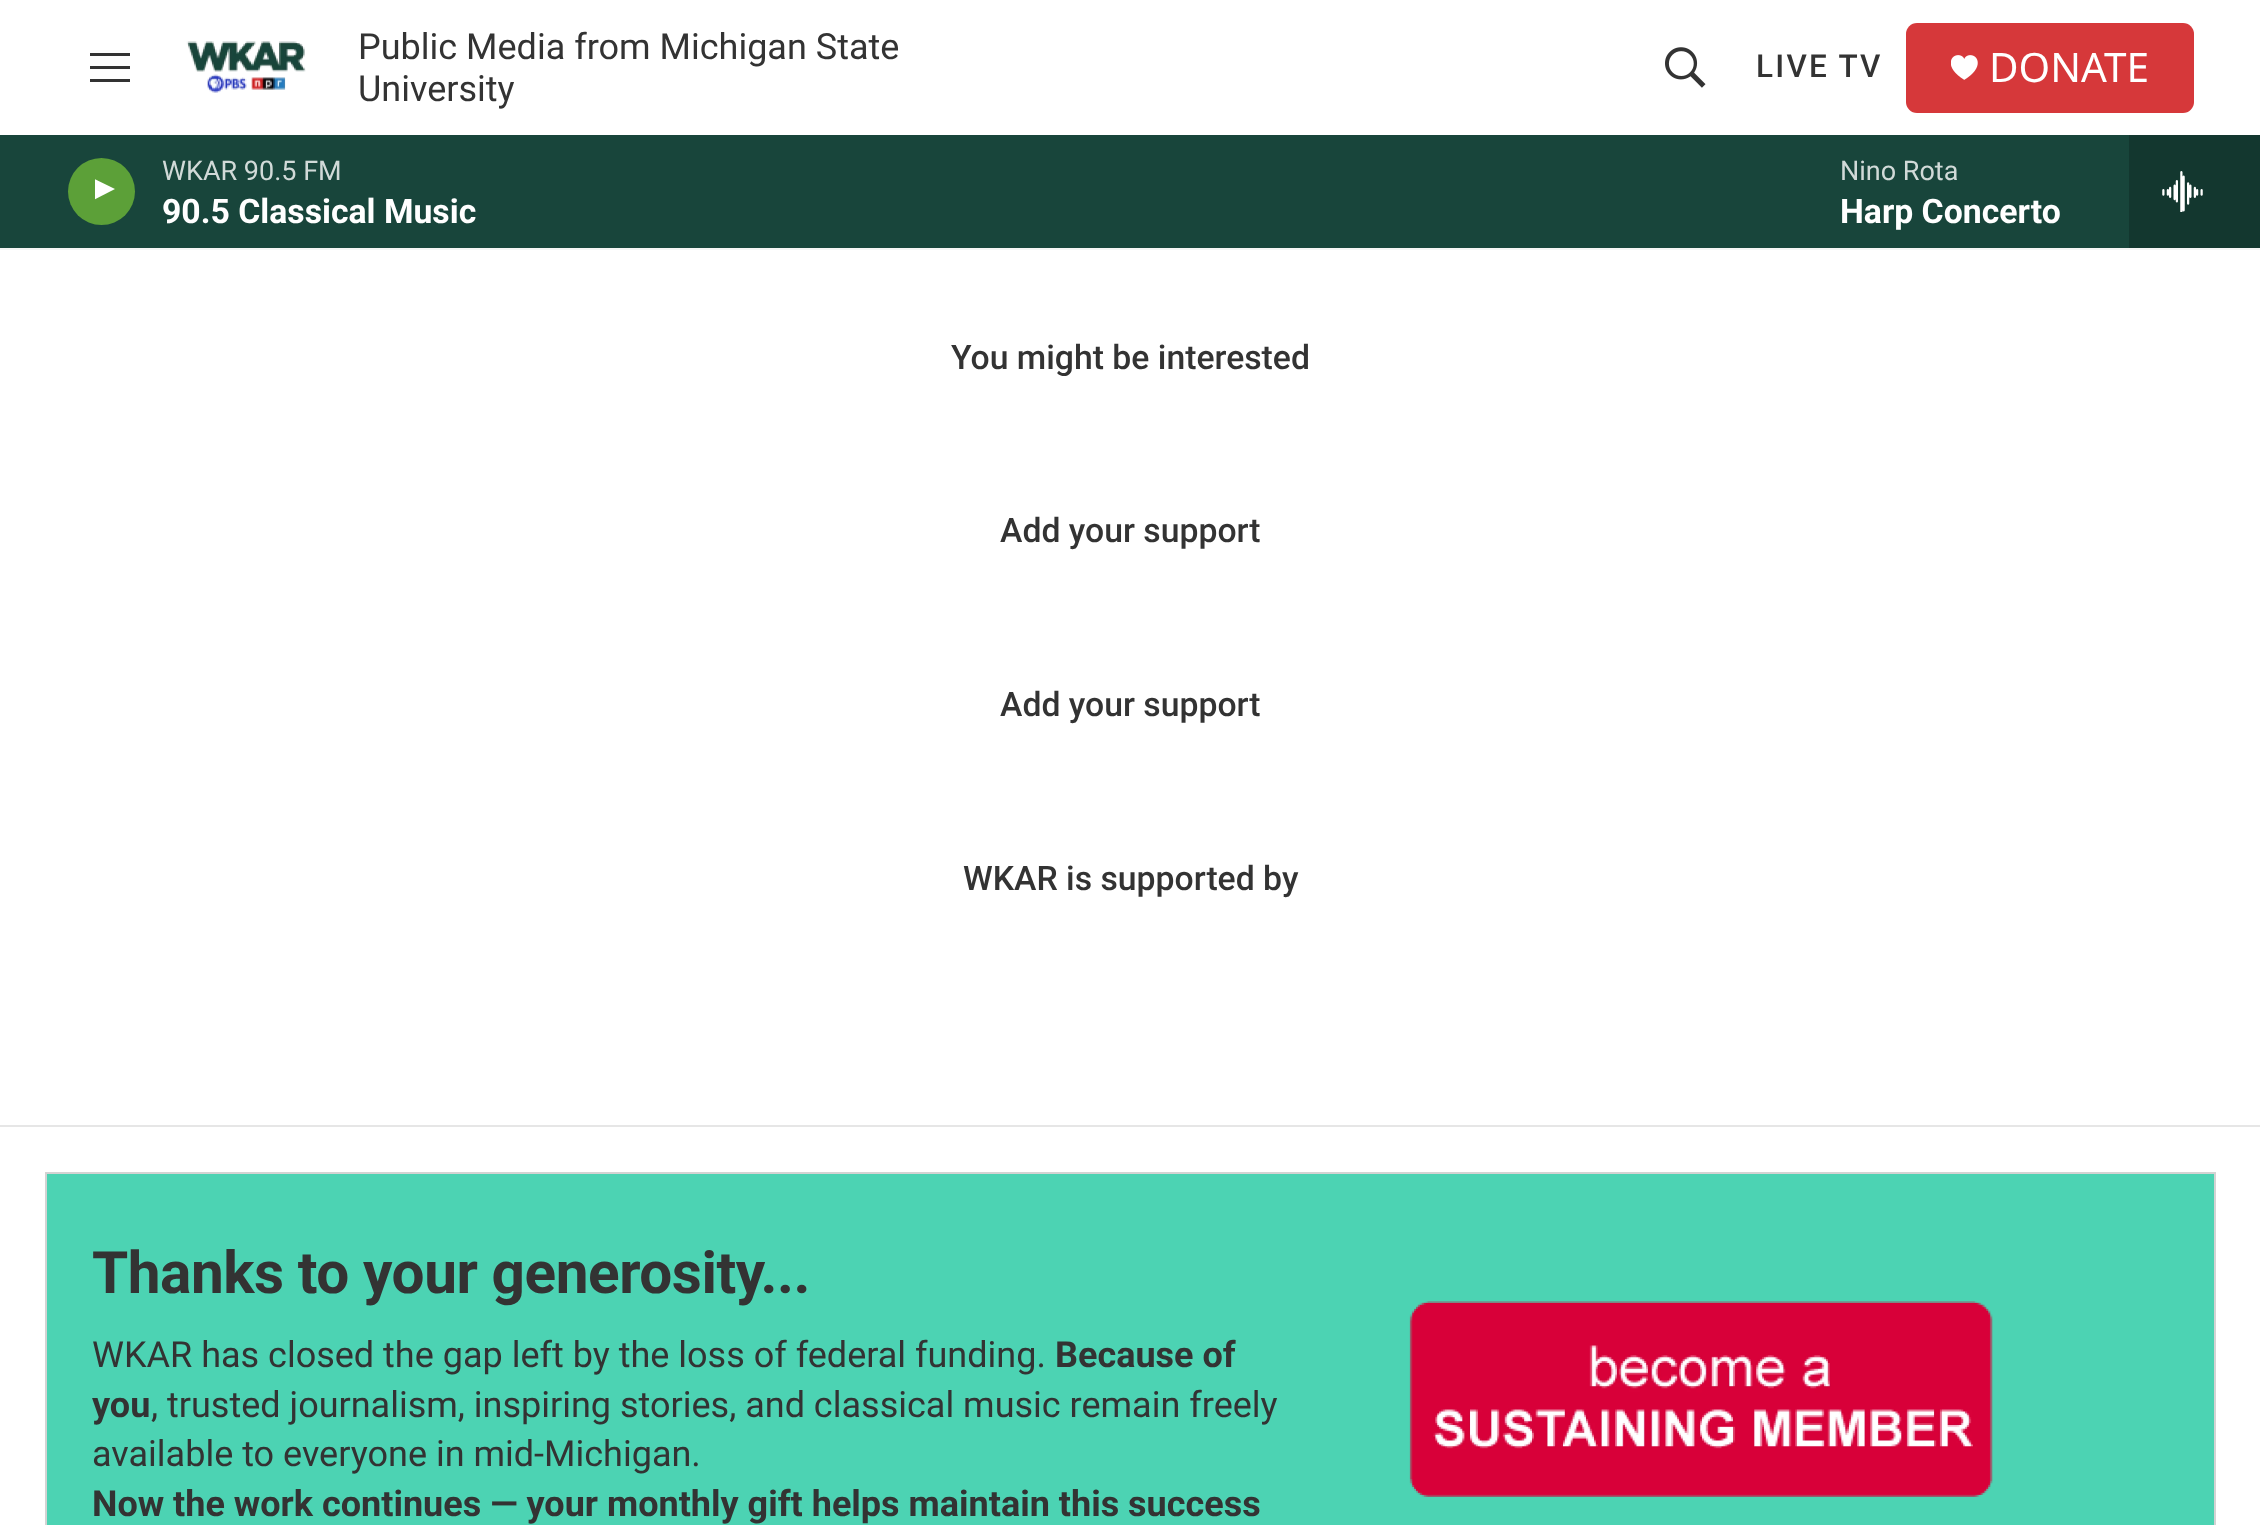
async function draw(canvas) {
	canvas.width = 2260;
	canvas.height = 1525;
	const c = canvas.getContext('2d');
	c.miterLimit = 4;
	c.fontKerning = 'normal';
	async function loadImage(src) {
		const img = new Image();
		img.src = src;
		await img.decode();
		return img;
	}

	c.fillStyle = '#fff';
	c.fillRect(0, 0, 2260, 1525);
	c.fillStyle = '#f5f5f5';
	c.fillRect(0, 248, 2260, 2);
	c.fillStyle = '#333';
	c.beginPath();
	c.moveTo(90, 69);
	c.lineTo(90, 66);
	c.lineTo(130, 66);
	c.lineTo(130, 69);
	c.closePath();
	c.moveTo(90, 56);
	c.lineTo(90, 53);
	c.lineTo(130, 53);
	c.lineTo(130, 56);
	c.closePath();
	c.moveTo(90, 82);
	c.lineTo(90, 79);
	c.lineTo(130, 79);
	c.lineTo(130, 82);
	c.closePath();
	c.fill('evenodd');
	c.drawImage(await loadImage('img1.png'), 186, 41, 120, 52);
	c.font = '36px Roboto';
	c.fillText('Public Media from Michigan State', 358, 59);
	c.fillText('University', 358, 101);
	c.drawImage(await loadImage('img2.png'), 1665, 47, 41, 41);
	c.letterSpacing = '2.25px';
	c.font = '500 31.5px Roboto';
	c.fillText('LIVE TV', 1756, 77);
	c.fillStyle = '#d6383a';
	c.beginPath();
	c.roundRect(1906, 23, 288, 90, 11);
	c.fill();
	c.drawImage(await loadImage('img3.png'), 1951, 55, 27, 25);
	c.letterSpacing = '0px';
	c.font = '40.5px Noto Sans';
	c.fillStyle = '#fff';
	c.fillText('DONATE', 1989, 82);
	c.fillStyle = '#18453b';
	c.fillRect(0, 135, 2129, 113);
	c.fillStyle = '#5ca038';
	c.beginPath();
	c.arc(101.5, 191.5, 33.5, 0, 2 * Math.PI);
	c.fill();
	c.save();
	c.beginPath();
	c.rect(95, 176, 25, 33);
	c.clip();
	c.fillStyle = '#fff';
	c.beginPath();
	c.moveTo(93.5, 178.5);
	c.lineTo(115, 189);
	c.lineTo(93.5, 200);
	c.closePath();
	c.fill();
	c.restore();
	c.font = '27px Roboto';
	c.fillStyle = '#d1dad8';
	c.fillText('WKAR 90.5 FM', 162, 180);
	c.font = 'bold 33.75px "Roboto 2"';
	c.fillStyle = '#fff';
	c.fillText('90.5 Classical Music', 162, 223);
	c.font = '27px Roboto';
	c.fillStyle = '#d1dad8';
	c.fillText('Nino Rota', 1840, 180);
	c.font = 'bold 33.75px "Roboto 2"';
	c.fillStyle = '#fff';
	c.fillText('Harp Concerto', 1840, 223);
	c.fillStyle = '#13372f';
	c.fillRect(2129, 135, 131, 113);
	c.drawImage(await loadImage('img4.png'), 2162, 171, 41, 41);
	c.font = '500 33.75px Roboto';
	c.fillStyle = '#333';
	for (const [text, x, y] of [
		['You might be interested', 951, 369],
		['Add your support', 1000, 542],
		['Add your support', 1000, 716],
		['WKAR is supported by', 963, 890],
	]) {
		c.fillText(text, x, y);
	}
	c.fillStyle = '#e6e6e6';
	c.fillRect(0, 1125, 2260, 2);
	c.fillStyle = '#4cd3b3';
	c.beginPath();
	c.rect(46, 1173, 2169, 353);
	c.fill();
	c.strokeStyle = '#d3d3d3';
	c.lineWidth = 2;
	c.stroke();
	c.letterSpacing = '-0.45px';
	c.font = 'bold 58.5px Roboto';
	c.fillStyle = '#333';
	c.fillText('Thanks to your generosity...', 92, 1293);
	c.letterSpacing = '0px';
	c.font = '36px Roboto';
	c.fillText('WKAR has closed the gap left by the loss of federal funding.', 92, 1367);
	c.font = 'bold 36px "Roboto 2"';
	c.fillText('Because of', 1055, 1367);
	c.fillText('you', 92, 1417);
	c.font = '36px Roboto';
	c.fillText(', trusted journalism, inspiring stories, and classical music remain freely', 151, 1417);
	c.fillText('available to everyone in mid-Michigan.', 92, 1466);
	c.font = 'bold 36px "Roboto 2"';
	c.fillText('Now the work continues — your monthly gift helps maintain this success', 92, 1516);
	c.drawImage(await loadImage('img5.png'), 1409, 1301, 584, 196);
}

draw(document.querySelector('canvas'));
